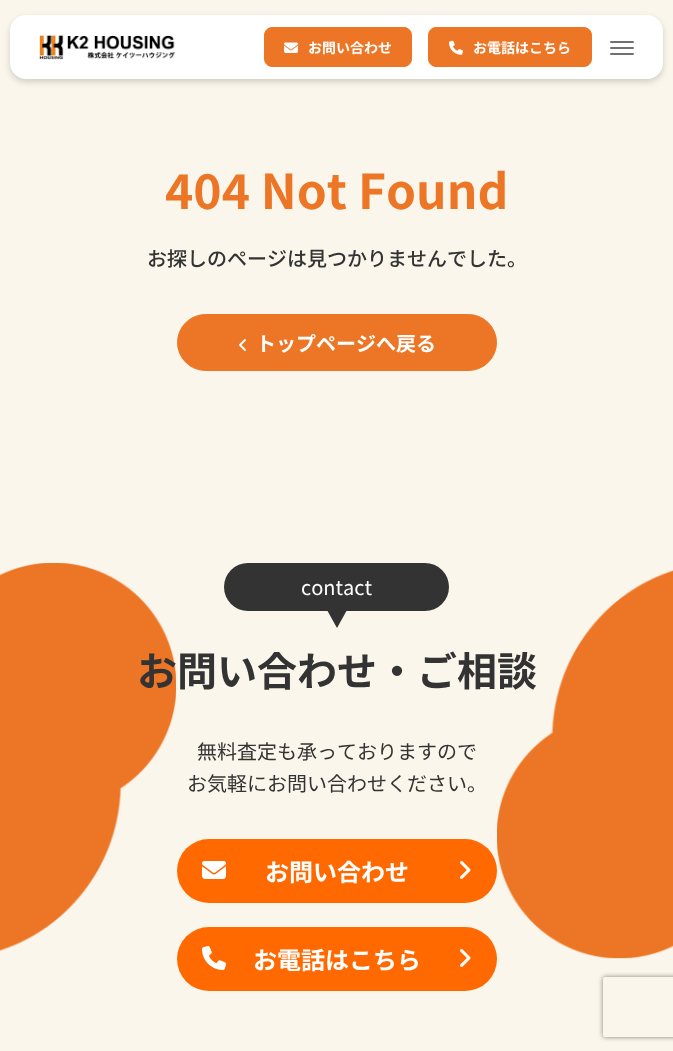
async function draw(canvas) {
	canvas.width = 673;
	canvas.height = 1051;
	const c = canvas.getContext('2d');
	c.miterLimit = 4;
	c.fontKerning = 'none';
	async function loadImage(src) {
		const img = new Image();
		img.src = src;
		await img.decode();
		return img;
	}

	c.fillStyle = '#faf6eb';
	c.fillRect(0, 0, 673, 1051);
	c.fillStyle = '#00000029';
	c.filter = 'blur(3px)';
	c.beginPath();
	c.roundRect(10, 18, 653, 64, 16);
	c.fill();
	c.filter = 'none';
	c.fillStyle = '#fff';
	c.beginPath();
	c.roundRect(10, 15, 653, 64, 16);
	c.fill();
	c.drawImage(await loadImage('img1.png'), 39, 34, 137, 26);
	c.fillStyle = '#ed7626';
	c.beginPath();
	c.roundRect(264.5, 27.5, 147, 39, 7.5);
	c.fill();
	c.strokeStyle = '#ed7626';
	c.stroke();
	c.drawImage(await loadImage('img2.png'), 284, 42, 14, 11);
	c.font = 'bold 14px Noto Sans JP';
	c.fillStyle = '#fff';
	c.fillText('お問い合わせ', 308, 53);
	c.fillStyle = '#ed7626';
	c.beginPath();
	c.roundRect(428.5, 27.5, 163, 39, 7.5);
	c.fill();
	c.stroke();
	c.drawImage(await loadImage('img3.png'), 449, 40, 14, 15);
	c.fillStyle = '#fff';
	c.fillText('お電話はこちら', 473, 53);
	c.fillStyle = '#707070';
	c.beginPath();
	c.roundRect(610, 41, 24, 2, 1);
	c.fill();
	c.beginPath();
	c.roundRect(610, 47, 24, 2, 1);
	c.fill();
	c.beginPath();
	c.roundRect(610, 53, 24, 2, 1);
	c.fill();
	c.font = 'bold 48px Noto Sans JP';
	c.fillStyle = '#ed7626';
	c.fillText('404 Not Found', 165, 209);
	c.font = '500 20px Noto Sans JP';
	c.fillStyle = '#333';
	c.fillText('お探しのページは見つかりませんでした。', 147, 266);
	c.fillStyle = '#ed7626';
	c.beginPath();
	c.roundRect(177.5, 314.5, 319, 56, 28);
	c.fill();
	c.stroke();
	c.drawImage(await loadImage('img4.png'), 239, 339, 7, 12);
	c.font = 'bold 20px Noto Sans JP';
	c.fillStyle = '#fff';
	c.fillText('トップページへ戻る', 256, 351);
	c.drawImage(await loadImage('img5.png'), 0, 563, 176, 389);
	c.fillStyle = '#333';
	c.beginPath();
	c.roundRect(224, 563, 225, 48, 24);
	c.fill();
	c.font = '20px Noto Sans JP';
	c.fillStyle = '#fff';
	c.fillText('contact', 301, 595);
	c.fillStyle = '#333';
	c.beginPath();
	c.moveTo(327, 610);
	c.lineTo(347, 610);
	c.lineTo(337, 628);
	c.closePath();
	c.fill();
	c.drawImage(await loadImage('img9.png'), 497, 570, 176, 389);
	c.font = 'bold 40px Noto Sans JP';
	c.fillText('お問い合わせ・ご相談', 137, 686);
	c.font = '20px Noto Sans JP';
	c.fillText('無料査定も承っておりますので', 197, 759);
	c.fillText('お気軽にお問い合わせください。', 187, 791);
	c.fillStyle = '#ff6900';
	c.beginPath();
	c.roundRect(177, 839, 320, 64, 32);
	c.fill();
	c.drawImage(await loadImage('img6.png'), 202, 861, 24, 18);
	c.font = 'bold 24px Noto Sans JP';
	c.fillStyle = '#fff';
	c.fillText('お問い合わせ', 265, 881);
	c.drawImage(await loadImage('img7.png'), 460, 861, 11, 18);
	c.fillStyle = '#ff6900';
	c.beginPath();
	c.roundRect(177, 927, 320, 64, 32);
	c.fill();
	c.drawImage(await loadImage('img8.png'), 202, 946, 24, 24);
	c.fillStyle = '#fff';
	c.fillText('お電話はこちら', 253, 969);
	c.drawImage(await loadImage('img7.png'), 460, 949, 11, 18);
	c.save();
	c.beginPath();
	c.moveTo(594, 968);
	c.lineTo(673, 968);
	c.lineTo(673, 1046);
	c.lineTo(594, 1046);
	c.closePath();
	c.moveTo(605, 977);
	c.lineTo(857, 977);
	c.bezierCurveTo(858, 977, 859, 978, 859, 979);
	c.lineTo(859, 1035);
	c.bezierCurveTo(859, 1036, 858, 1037, 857, 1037);
	c.lineTo(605, 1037);
	c.bezierCurveTo(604, 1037, 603, 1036, 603, 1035);
	c.lineTo(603, 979);
	c.bezierCurveTo(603, 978, 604, 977, 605, 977);
	c.closePath();
	c.clip('evenodd');
	c.fillStyle = '#808080';
	c.filter = 'blur(2.5px)';
	c.beginPath();
	c.roundRect(603, 977, 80, 60, 2);
	c.fill();
	c.filter = 'none';
	c.restore();
}

draw(document.querySelector('canvas'));
